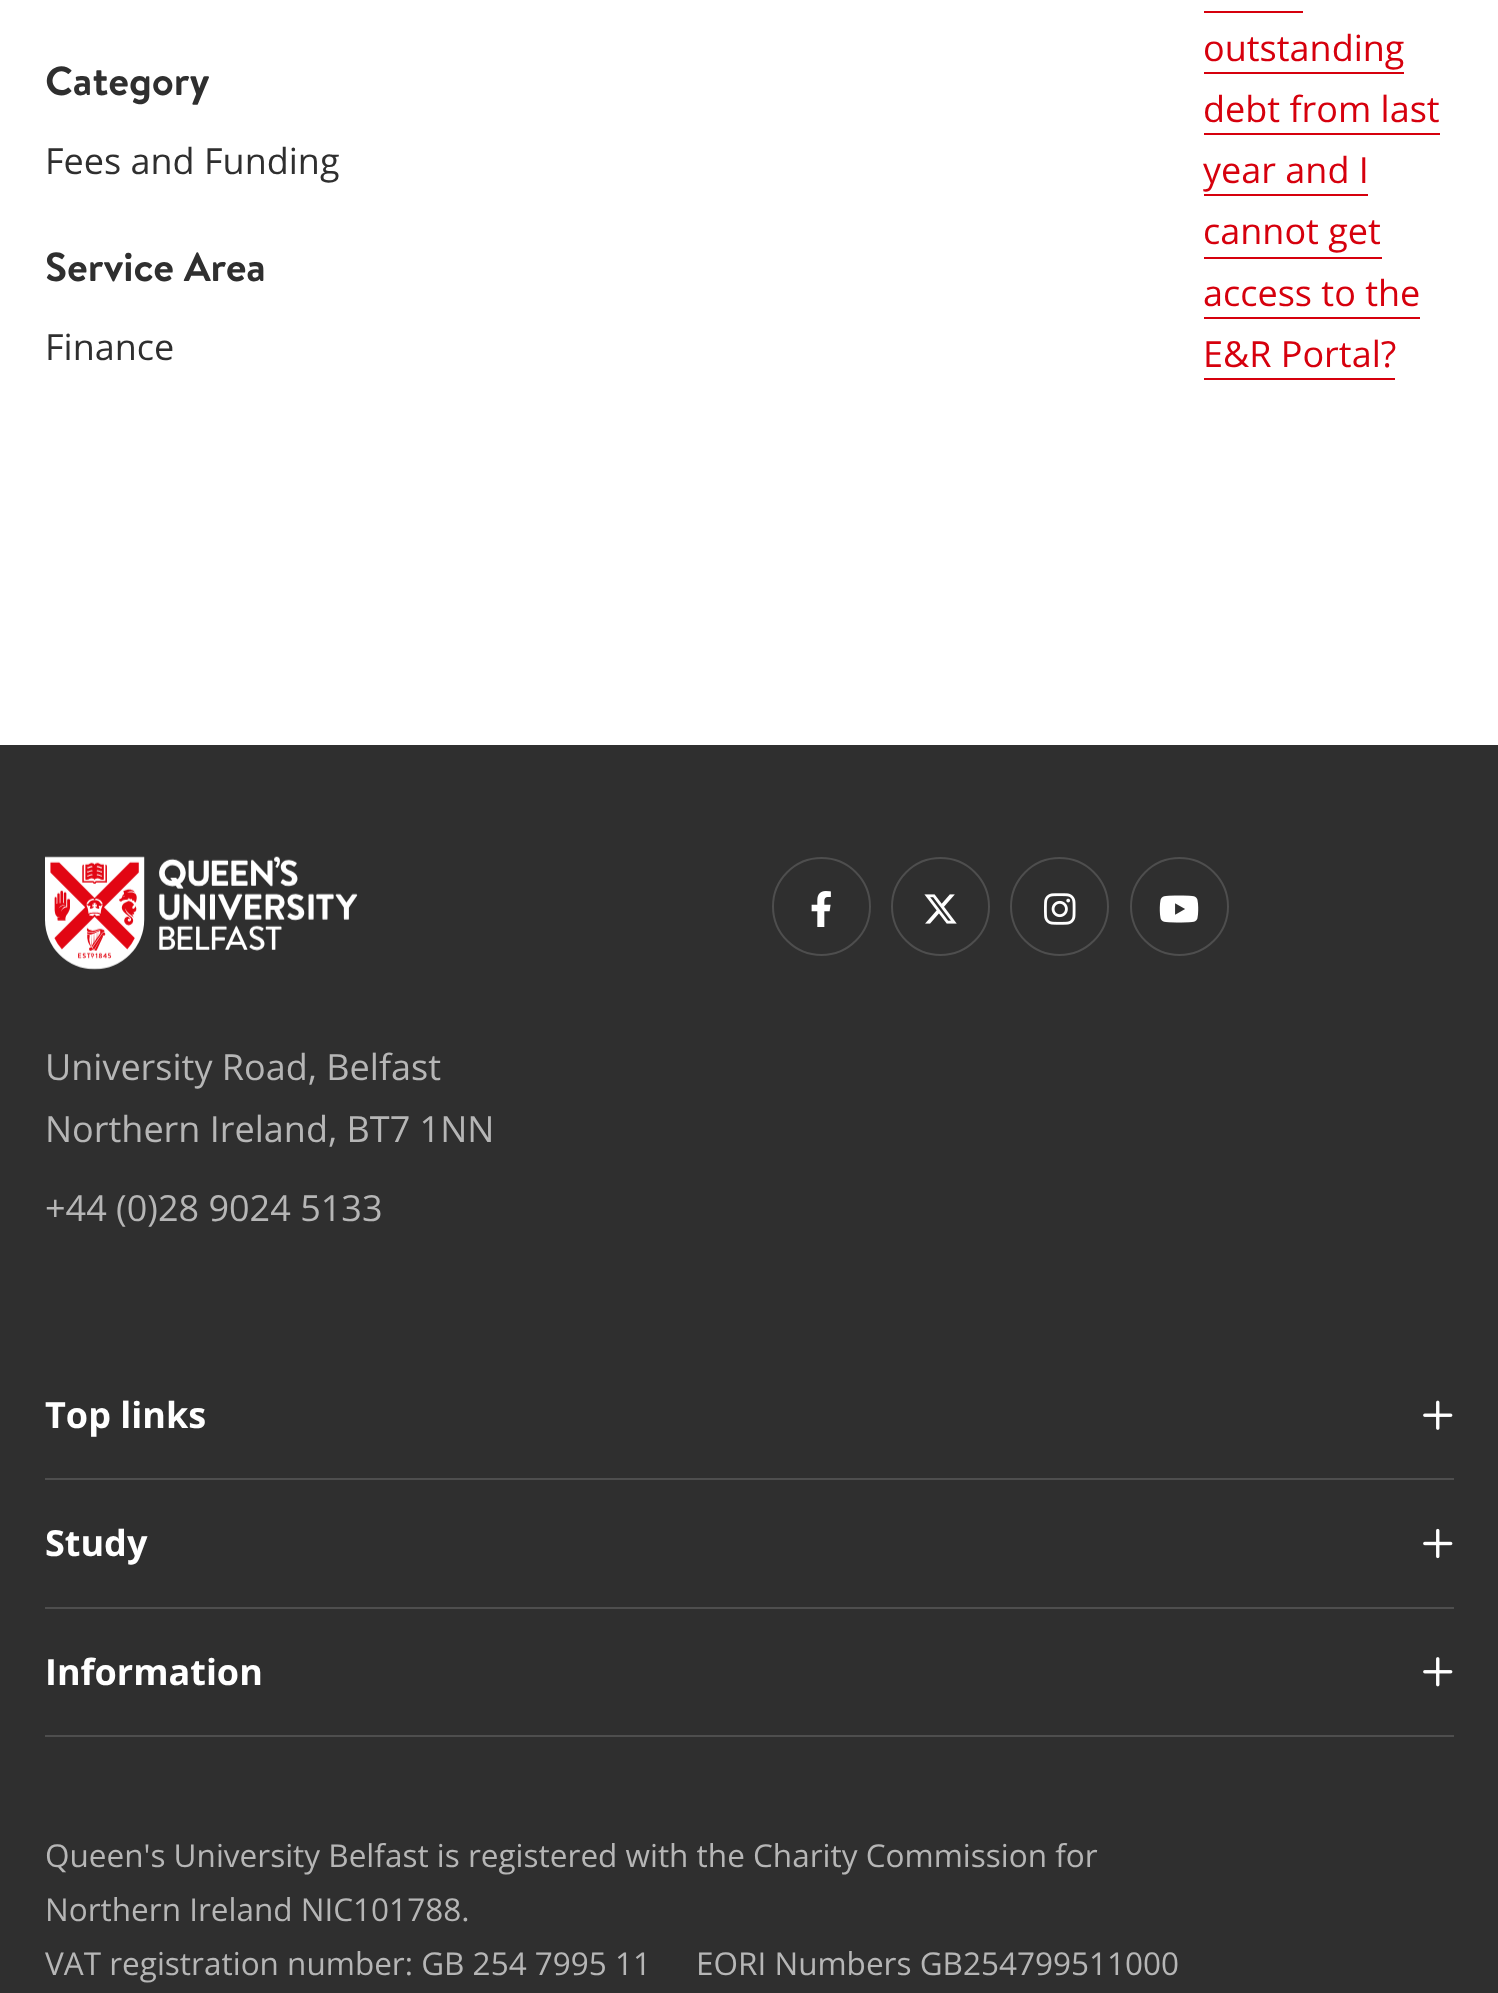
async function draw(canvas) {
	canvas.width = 1498;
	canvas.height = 1993;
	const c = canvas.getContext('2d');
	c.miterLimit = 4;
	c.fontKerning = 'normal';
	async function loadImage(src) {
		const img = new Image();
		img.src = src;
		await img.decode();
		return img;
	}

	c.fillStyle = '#fff';
	c.fillRect(0, 0, 1498, 1993);
	c.font = 'bold 40.5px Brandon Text';
	c.fillStyle = '#2f2f2f';
	c.fillText('Category', 45, 95);
	c.font = '36px Open Sans';
	c.fillText('Fees and Funding', 45, 174);
	c.font = 'bold 40.5px Brandon Text';
	c.fillText('Service Area', 45, 281);
	c.font = '36px Open Sans';
	c.fillText('Finance', 45, 360);
	c.fillStyle = '#d6000d';
	c.fillText('outstanding', 1203, 61);
	c.fillRect(1204, 11, 99, 2);
	c.fillRect(1204, 72, 200, 2);
	c.fillText('debt from last', 1203, 122);
	c.fillRect(1204, 133, 236, 2);
	c.fillText('year and I', 1203, 183);
	c.fillRect(1204, 194, 164, 2);
	c.fillText('cannot get', 1203, 244);
	c.fillRect(1204, 257, 178, 2);
	c.fillText('access to the', 1203, 306);
	c.fillRect(1204, 317, 216, 2);
	c.fillText('E&R Portal?', 1203, 367);
	c.fillRect(1204, 378, 191, 2);
	c.fillStyle = '#2f2f2f';
	c.fillRect(0, 745, 1498, 1248);
	c.drawImage(await loadImage('img1.png'), 45, 856, 313, 114);
	c.beginPath();
	c.arc(821.5, 906.5, 48.5, 0, 2 * Math.PI);
	c.strokeStyle = '#4e4e4e';
	c.lineWidth = 2;
	c.stroke();
	c.drawImage(await loadImage('img2.png'), 811, 891, 20, 36);
	c.beginPath();
	c.arc(940.5, 906.5, 48.5, 0, 2 * Math.PI);
	c.stroke();
	c.drawImage(await loadImage('img3.png'), 924, 894, 33, 30);
	c.beginPath();
	c.arc(1059.5, 906.5, 48.5, 0, 2 * Math.PI);
	c.stroke();
	c.drawImage(await loadImage('img4.png'), 1044, 893, 32, 32);
	c.beginPath();
	c.arc(1179.5, 906.5, 48.5, 0, 2 * Math.PI);
	c.stroke();
	c.drawImage(await loadImage('img5.png'), 1159, 895, 40, 28);
	c.fillStyle = '#b6b6b6';
	for (const [text, x, y] of [
		['University Road, Belfast', 45, 1080],
		['Northern Ireland, BT7 1NN', 45, 1142],
		['+44 (0)28 9024 5133', 45, 1221],
	]) {
		c.fillText(text, x, y);
	}
	c.fillStyle = '#4e4e4e';
	c.fillRect(45, 1478, 1409, 2);
	c.font = 'bold 36px Open Sans';
	c.fillStyle = '#fff';
	c.fillText('Top links', 45, 1428);
	c.drawImage(await loadImage('img6.png'), 1423, 1400, 30, 30);
	c.fillStyle = '#4e4e4e';
	c.fillRect(45, 1607, 1409, 2);
	c.fillStyle = '#fff';
	c.fillText('Study', 45, 1556);
	c.drawImage(await loadImage('img7.png'), 1423, 1528, 30, 31);
	c.fillStyle = '#4e4e4e';
	c.fillRect(45, 1735, 1409, 2);
	c.fillStyle = '#fff';
	c.fillText('Information', 45, 1685);
	c.drawImage(await loadImage('img8.png'), 1423, 1657, 30, 30);
	c.font = '31.5px Open Sans';
	c.fillStyle = '#b6b6b6';
	for (const [text, x, y] of [
		['Queen\'s University Belfast is registered with the Charity Commission for', 45, 1867],
		['Northern Ireland NIC101788.', 45, 1921],
		['VAT registration number: GB 254 7995 11', 45, 1975],
		['EORI Numbers GB254799511000', 696, 1975],
	]) {
		c.fillText(text, x, y);
	}
}

draw(document.querySelector('canvas'));
